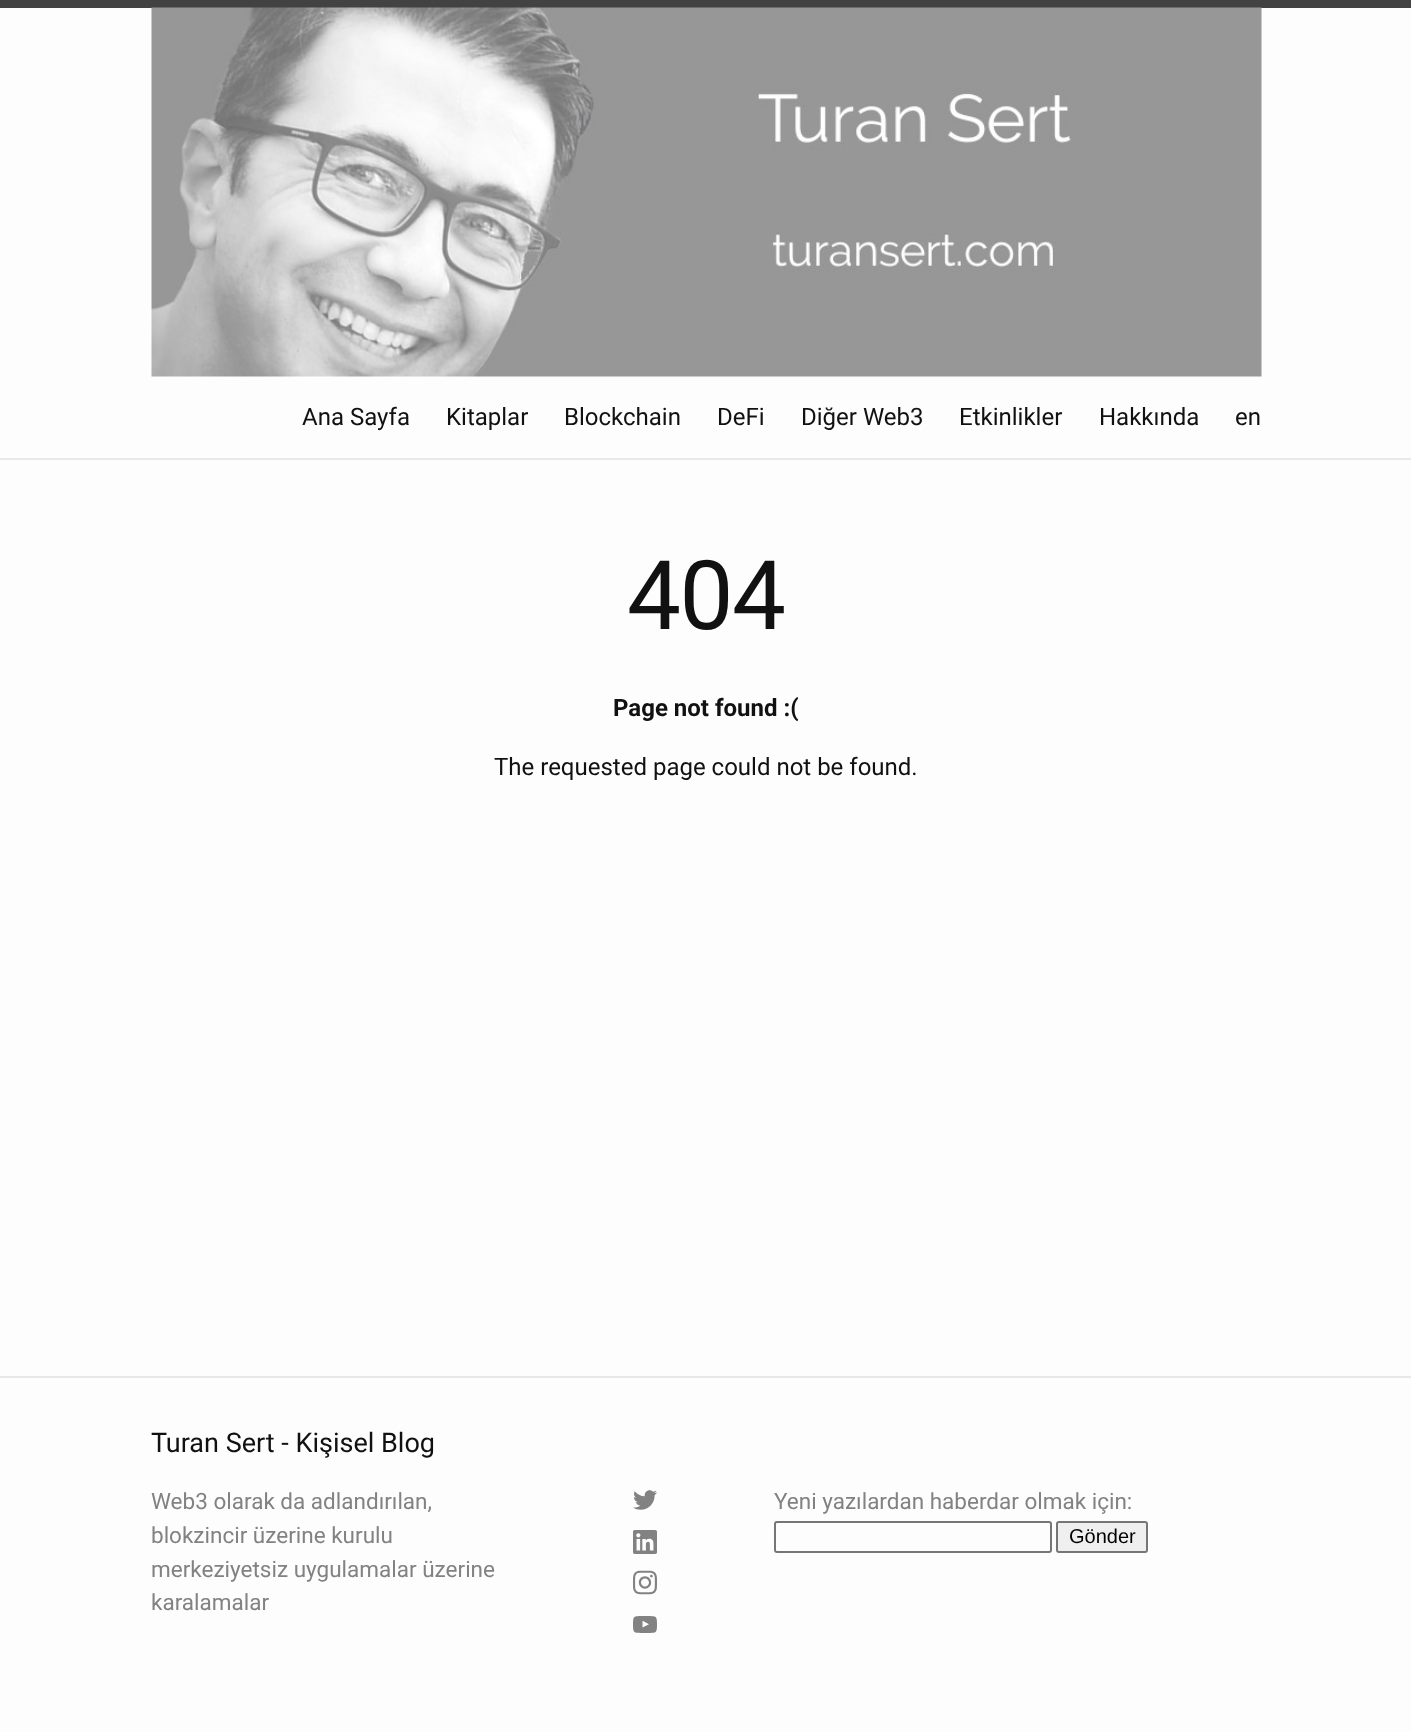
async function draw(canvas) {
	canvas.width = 1411;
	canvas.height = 1732;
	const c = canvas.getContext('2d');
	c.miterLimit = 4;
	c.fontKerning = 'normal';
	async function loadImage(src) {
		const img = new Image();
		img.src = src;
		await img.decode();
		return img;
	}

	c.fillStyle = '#fdfdfd';
	c.fillRect(0, 0, 1411, 1732);
	c.fillStyle = '#424242';
	c.fillRect(0, 0, 1411, 8);
	c.fillStyle = '#e8e8e8';
	c.fillRect(0, 458, 1411, 2);
	c.drawImage(await loadImage('img1.png'), 151, 7, 1111, 370);
	c.font = '24px Roboto';
	c.fillStyle = '#111';
	for (const [text, x, y] of [
		['Ana Sayfa', 302, 425],
		['Kitaplar', 446, 425],
		['Blockchain', 564, 425],
		['DeFi', 717, 425],
		['Diğer Web3', 801, 425],
		['Etkinlikler', 959, 425],
		['Hakkında', 1099, 425],
		['en', 1235, 425],
	]) {
		c.fillText(text, x, y);
	}
	c.letterSpacing = '-1.5px';
	c.font = '96px Roboto';
	c.fillText('404', 627, 629);
	c.letterSpacing = '0px';
	c.font = 'bold 24px Roboto';
	c.fillText('Page not found :(', 613, 716);
	c.font = '24px Roboto';
	c.fillText('The requested page could not be found.', 494, 775);
	c.fillStyle = '#e8e8e8';
	c.fillRect(0, 1376, 1411, 2);
	c.font = '27px Roboto';
	c.fillStyle = '#111';
	c.fillText('Turan Sert - Kişisel Blog', 151, 1452);
	c.font = '22.5px Roboto';
	c.fillStyle = '#828282';
	for (const [text, x, y] of [
		['Web3 olarak da adlandırılan,', 151, 1509],
		['blokzincir üzerine kurulu', 151, 1543],
		['merkeziyetsiz uygulamalar üzerine', 151, 1577],
		['karalamalar', 151, 1610],
	]) {
		c.fillText(text, x, y);
	}
	c.drawImage(await loadImage('img2.png'), 633, 1490, 24, 20);
	c.drawImage(await loadImage('img3.png'), 633, 1530, 24, 24);
	c.drawImage(await loadImage('img4.png'), 633, 1570, 24, 25);
	c.drawImage(await loadImage('img5.png'), 633, 1616, 24, 17);
	c.fillText('Yeni yazılardan haberdar olmak için:', 774, 1509);
	c.beginPath();
	c.roundRect(775, 1522, 276, 30, 2);
	c.strokeStyle = '#767676';
	c.lineWidth = 2;
	c.stroke();
	c.fillStyle = '#efefef';
	c.beginPath();
	c.roundRect(1057, 1522, 90, 30, 2);
	c.fill();
	c.stroke();
	c.font = '20px Liberation Sans';
	c.fillStyle = '#000';
	c.fillText('Gönder', 1069, 1543);
}

draw(document.querySelector('canvas'));
